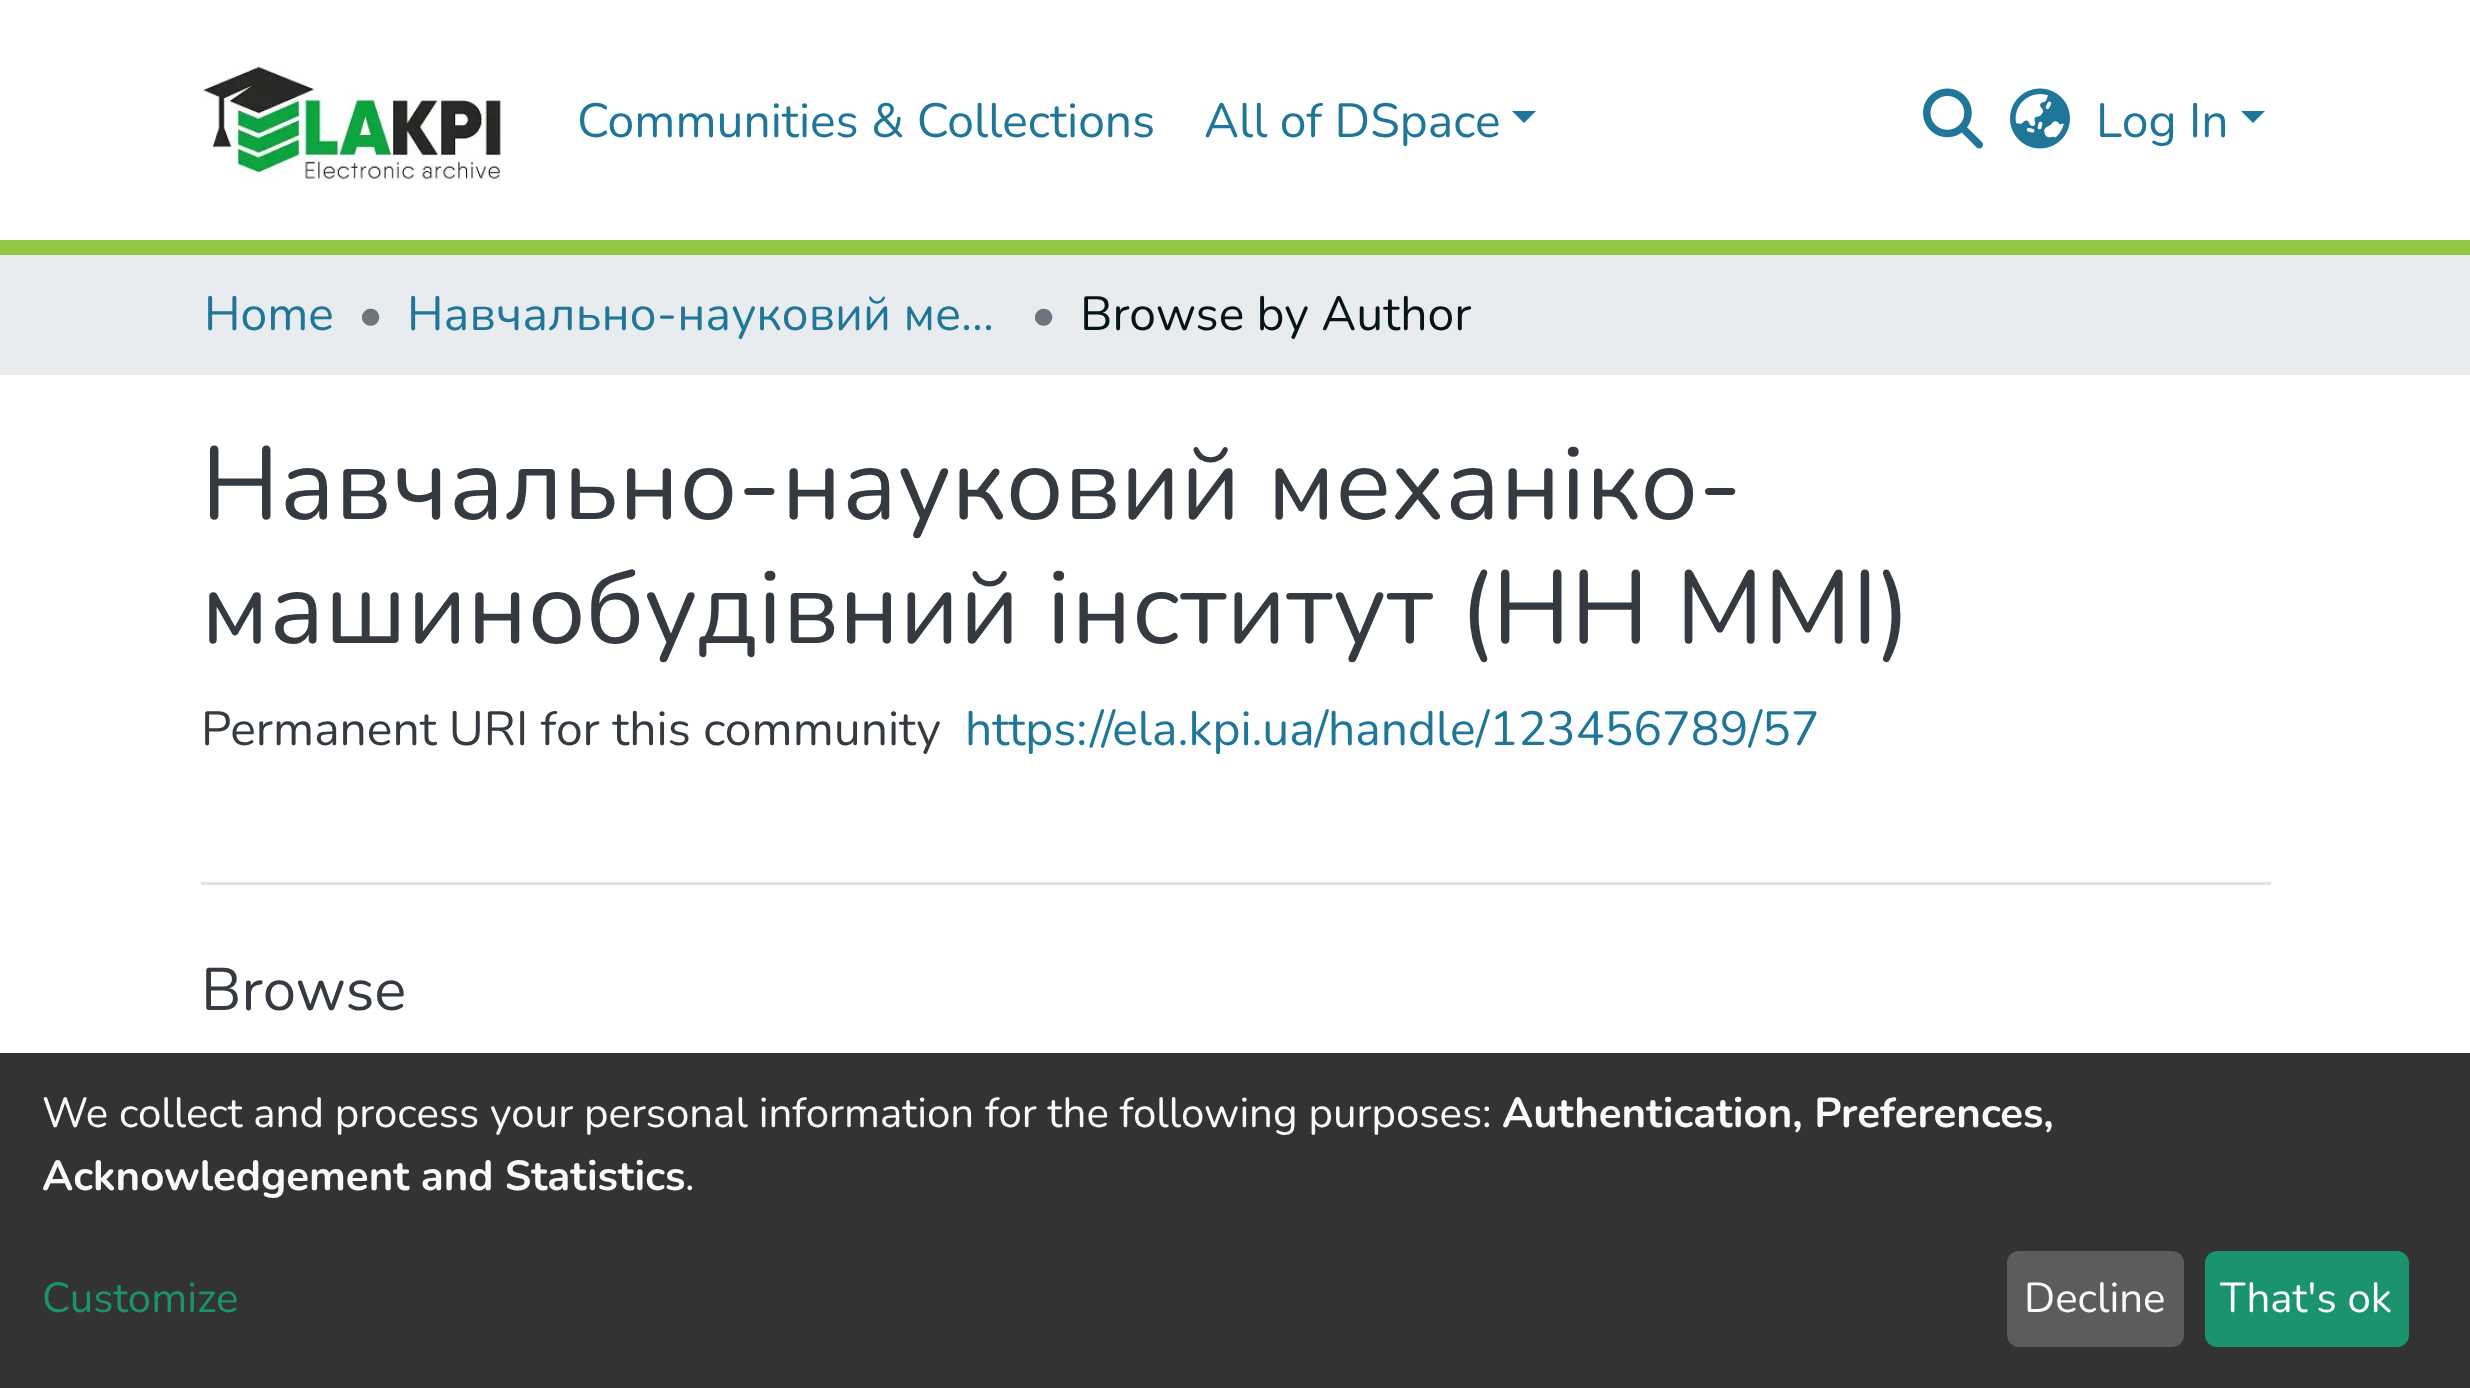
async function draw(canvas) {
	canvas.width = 2470;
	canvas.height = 1388;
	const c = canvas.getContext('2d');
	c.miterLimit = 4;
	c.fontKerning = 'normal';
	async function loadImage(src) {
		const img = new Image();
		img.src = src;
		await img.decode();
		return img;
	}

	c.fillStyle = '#fff';
	c.fillRect(0, 0, 2470, 1388);
	c.fillStyle = '#92c642';
	c.fillRect(0, 240, 2470, 15);
	c.drawImage(await loadImage('img1.png'), 202, 67, 299, 114);
	c.font = '48px Nunito';
	c.fillStyle = '#207698';
	c.fillText('Communities & Collections', 577, 137);
	c.fillText('All of DSpace', 1204, 137);
	c.beginPath();
	c.moveTo(1512, 111);
	c.lineTo(1536, 111);
	c.lineTo(1524, 123);
	c.closePath();
	c.fill();
	c.drawImage(await loadImage('img2.png'), 1923, 88, 60, 61);
	c.drawImage(await loadImage('img3.png'), 2010, 88, 60, 61);
	c.fillText('Log In', 2096, 137);
	c.beginPath();
	c.moveTo(2241, 111);
	c.lineTo(2265, 111);
	c.lineTo(2253, 123);
	c.closePath();
	c.fill();
	c.fillStyle = '#e9ecef';
	c.fillRect(0, 255, 2470, 120);
	c.fillStyle = '#207698';
	c.fillText('Home', 204, 330);
	c.fillStyle = '#6c757d';
	c.fillText('•', 358, 330);
	c.fillStyle = '#207698';
	c.fillText('Навчально-науковий ме…', 407, 330);
	c.fillStyle = '#6c757d';
	c.fillText('•', 1031, 330);
	c.fillStyle = '#05141a';
	c.fillText('Browse by Author', 1080, 330);
	c.fillStyle = '#dee2e6';
	c.fillRect(201, 882, 2070, 3);
	c.font = '103.1px Nunito';
	c.fillStyle = '#343a40';
	c.fillText('Навчально-науковий механіко-', 201, 519);
	c.fillText('машинобудівний інститут (НН ММІ)', 201, 643);
	c.font = '48px Nunito';
	c.fillText('Permanent URI for this community', 201, 745);
	c.fillStyle = '#207698';
	c.fillText('https://ela.kpi.ua/handle/123456789/57', 965, 745);
	c.font = '60px Nunito';
	c.fillStyle = '#343a40';
	c.fillText('Browse', 201, 1010);
	c.fillStyle = '#333';
	c.fillRect(0, 1053, 2470, 335);
	c.font = '42px Nunito';
	c.fillStyle = '#fafafa';
	c.fillText('We collect and process your personal information for the following purposes:', 42, 1127);
	c.font = 'bold 42px Nunito';
	c.fillText('Authentication, Preferences,', 1502, 1127);
	c.fillText('Acknowledgement and Statistics', 42, 1190);
	c.font = '42px Nunito';
	c.fillText('.', 685, 1190);
	c.fillStyle = '#1a936f';
	c.fillText('Customize', 42, 1312);
	c.fillStyle = '#5c5c5c';
	c.beginPath();
	c.roundRect(2007, 1251, 177, 96, 12);
	c.fill();
	c.fillStyle = '#fafafa';
	c.fillText('Decline', 2024, 1312);
	c.fillStyle = '#1a936f';
	c.beginPath();
	c.roundRect(2205, 1251, 204, 96, 12);
	c.fill();
	c.fillStyle = '#fafafa';
	c.fillText('That\'s ok', 2220, 1312);
}

draw(document.querySelector('canvas'));
